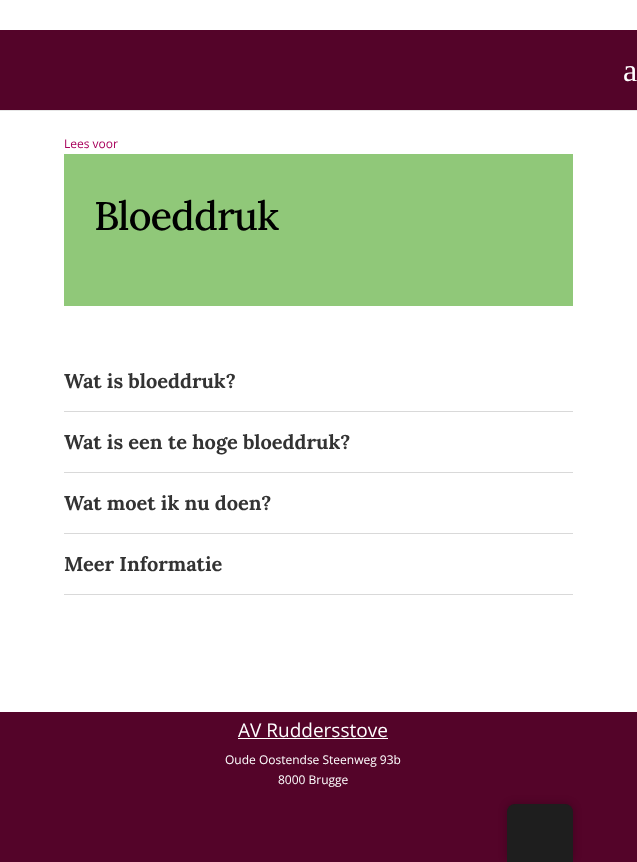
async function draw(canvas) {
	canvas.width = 637;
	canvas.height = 862;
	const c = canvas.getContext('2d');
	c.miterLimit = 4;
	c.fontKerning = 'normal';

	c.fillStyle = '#fff';
	c.fillRect(0, 0, 637, 862);
	c.fillStyle = '#e6e6e6';
	c.fillRect(0, 110, 637, 1);
	c.fillStyle = '#540429';
	c.fillRect(0, 30, 637, 80);
	c.font = '32px Liberation Serif';
	c.fillStyle = '#fff';
	c.fillText('a', 623, 81);
	c.font = '12px Open Sans';
	c.fillStyle = '#a8005b';
	c.fillText('Lees voor', 64, 148);
	c.fillStyle = '#90c879';
	c.fillRect(64, 154, 509, 152);
	c.letterSpacing = '-1px';
	c.font = '500 40px Lora';
	c.fillStyle = '#000';
	c.fillText('Bloeddruk', 94, 230);
	c.fillStyle = '#d9d9d9';
	c.fillRect(64, 411, 509, 1);
	c.letterSpacing = '0px';
	c.font = 'bold 20px Lora';
	c.fillStyle = '#333';
	c.fillText('Wat is bloeddruk?', 64, 388);
	c.fillStyle = '#d9d9d9';
	c.fillRect(64, 472, 509, 1);
	c.fillStyle = '#333';
	c.fillText('Wat is een te hoge bloeddruk?', 64, 449);
	c.fillStyle = '#d9d9d9';
	c.fillRect(64, 533, 509, 1);
	c.fillStyle = '#333';
	c.fillText('Wat moet ik nu doen?', 64, 510);
	c.fillStyle = '#d9d9d9';
	c.fillRect(64, 594, 509, 1);
	c.fillStyle = '#333';
	c.fillText('Meer Informatie', 64, 571);
	c.fillStyle = '#540429';
	c.fillRect(0, 712, 637, 150);
	c.font = '19px Open Sans';
	c.fillStyle = '#fff';
	c.fillText('AV Ruddersstove', 238, 737);
	c.fillRect(238, 738, 150, 1);
	c.font = '12px Open Sans';
	c.fillText('Oude Oostendse Steenweg 93b', 225, 764);
	c.fillText('8000 Brugge', 278, 784);
	c.fillStyle = '#00000040';
	c.filter = 'blur(4px)';
	c.beginPath();
	c.roundRect(507, 804, 66, 58, 8);
	c.fill();
	c.filter = 'none';
	c.fillStyle = '#1e1e1e';
	c.beginPath();
	c.roundRect(507, 804, 66, 58, [8, 8, 0, 0]);
	c.fill();
}

draw(document.querySelector('canvas'));
